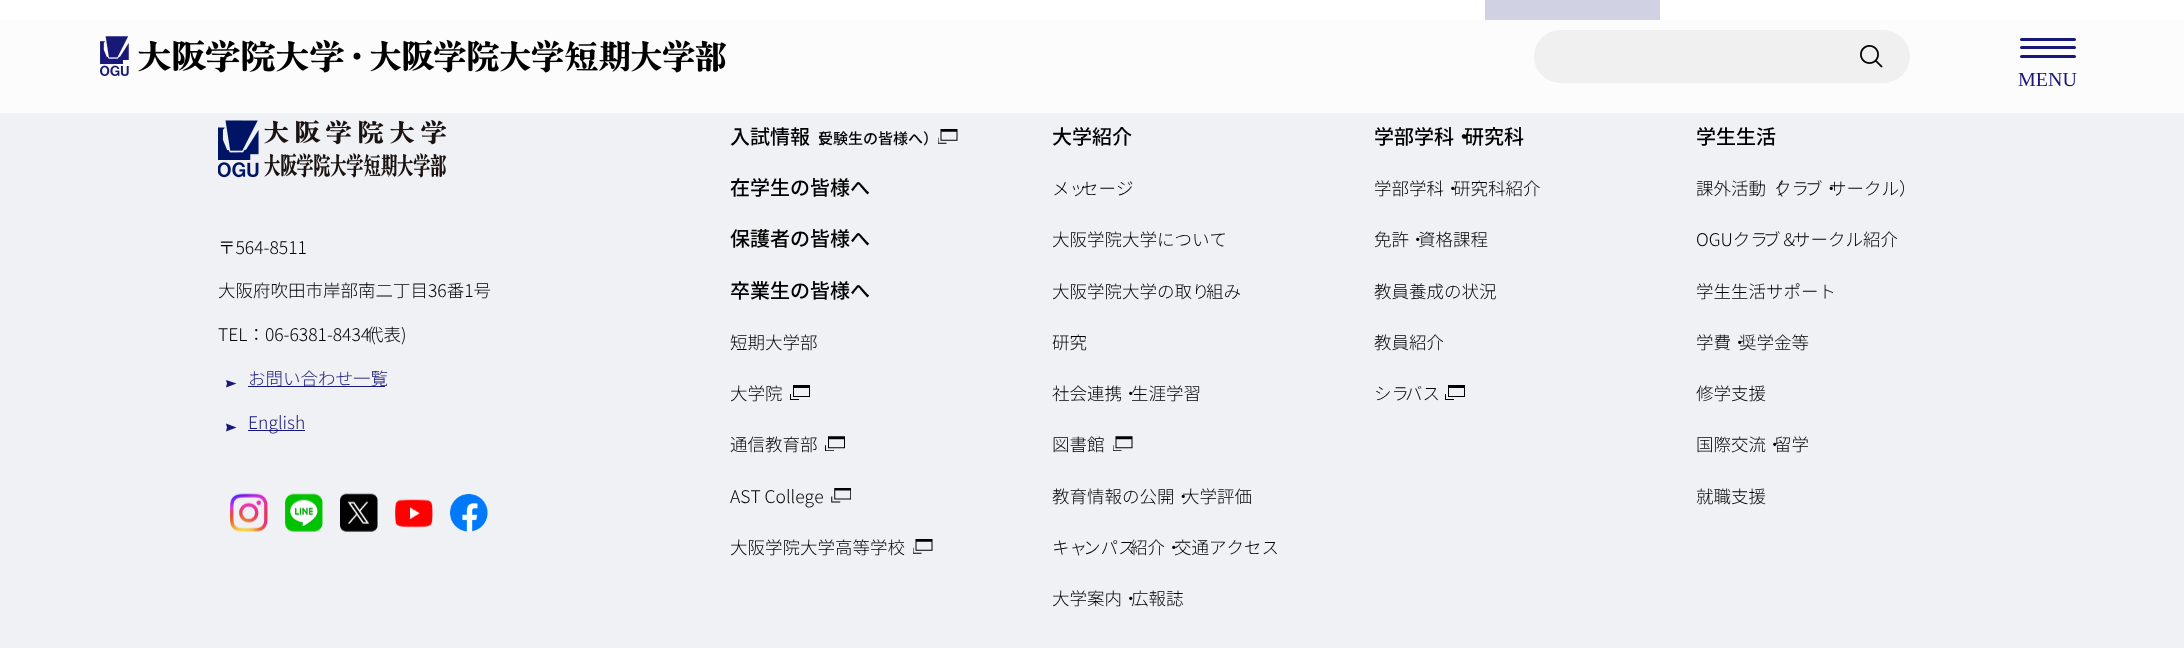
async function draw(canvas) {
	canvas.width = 2184;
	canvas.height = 648;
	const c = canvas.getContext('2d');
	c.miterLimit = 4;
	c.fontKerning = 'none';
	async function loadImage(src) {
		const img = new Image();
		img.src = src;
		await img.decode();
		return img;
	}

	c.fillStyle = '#fff';
	c.fillRect(0, 0, 2184, 648);
	c.fillStyle = '#d1d1e4';
	c.fillRect(1485, 0, 175, 20);
	c.fillStyle = '#fcfcfd';
	c.fillRect(0, 20, 2184, 93);
	c.drawImage(await loadImage('img1.png'), 100, 36, 626, 40);
	c.fillStyle = '#f0f0f0';
	c.beginPath();
	c.roundRect(1534, 30, 376, 53, 26.5);
	c.fill();
	c.drawImage(await loadImage('img2.png'), 1860, 45, 23, 23);
	c.fillStyle = '#181878';
	c.beginPath();
	c.roundRect(2020, 38, 56, 3, 1.5);
	c.fill();
	c.beginPath();
	c.roundRect(2020, 46, 56, 3, 1.5);
	c.fill();
	c.beginPath();
	c.roundRect(2020, 55, 56, 3, 1.5);
	c.fill();
	c.font = '20px Liberation Serif';
	c.fillText('MENU', 2018, 86);
	c.fillStyle = '#eff1f4';
	c.fillRect(0, 113, 2184, 535);
	c.drawImage(await loadImage('img3.png'), 218, 120, 228, 58);
	c.font = '300 17.5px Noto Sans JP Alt';
	c.fillStyle = '#000';
	c.fillText('〒564-8511', 218, 254);
	c.font = '300 17.5px Noto Sans JP';
	c.fillText('大阪府吹田市岸部南二丁目36番1号', 218, 297);
	c.fillText('TEL：06-6381-8434(', 218, 341);
	c.fillText('代表)', 366, 341);
	c.fillStyle = '#181878';
	c.beginPath();
	c.moveTo(236.5, 383.5);
	c.lineTo(226, 380);
	c.lineTo(227, 383.5);
	c.lineTo(226, 387.5);
	c.closePath();
	c.fill();
	c.fillRect(248, 386, 137, 1);
	c.fillText('お問い合わせ一覧', 248, 385);
	c.beginPath();
	c.moveTo(236.5, 427.5);
	c.lineTo(226, 423.5);
	c.lineTo(227, 427.5);
	c.lineTo(226, 431.5);
	c.closePath();
	c.fill();
	c.fillRect(248, 430, 57, 1);
	c.fillText('English', 248, 429);
	c.drawImage(await loadImage('img4.png'), 230, 493, 38, 39);
	c.drawImage(await loadImage('img5.png'), 285, 493, 38, 39);
	c.drawImage(await loadImage('img6.png'), 340, 493, 38, 39);
	c.drawImage(await loadImage('img7.png'), 395, 499, 38, 29);
	c.drawImage(await loadImage('img8.png'), 450, 494, 38, 38);
	c.font = '500 20px Noto Sans JP';
	c.fillStyle = '#000';
	c.fillText('入試情報', 730, 144);
	c.font = '500 15px Noto Sans JP';
	c.fillText('（', 810, 144);
	c.fillText('受験生の皆様へ）', 818, 144);
	c.drawImage(await loadImage('img9.png'), 938, 129, 20, 15);
	c.font = '500 20px Noto Sans JP';
	for (const [text, x, y] of [
		['在学生の皆様へ', 730, 195],
		['保護者の皆様へ', 730, 246],
		['卒業生の皆様へ', 730, 298],
	]) {
		c.fillText(text, x, y);
	}
	c.font = '300 17.5px Noto Sans JP';
	c.fillText('短期大学部', 730, 349);
	c.fillText('大学院', 730, 400);
	c.drawImage(await loadImage('img10.png'), 790, 385, 20, 15);
	c.fillText('通信教育部', 730, 451);
	c.drawImage(await loadImage('img11.png'), 825, 436, 20, 15);
	c.fillText('AST College', 730, 503);
	c.drawImage(await loadImage('img12.png'), 831, 488, 20, 15);
	c.fillText('大阪学院大学高等学校', 730, 554);
	c.drawImage(await loadImage('img9.png'), 913, 539, 20, 15);
	c.font = '500 20px Noto Sans JP';
	c.fillText('大学紹介', 1052, 144);
	c.font = '300 17.5px Noto Sans JP';
	for (const [text, x, y] of [
		['メッ', 1052, 195],
		['セージ', 1081, 195],
		['大阪学院大学について', 1052, 246],
		['大阪学院大学の取り', 1052, 298],
		['組み', 1206, 298],
		['研究', 1052, 349],
		['社会連携・', 1052, 400],
		['生涯学習', 1131, 400],
		['図書館', 1052, 451],
	]) {
		c.fillText(text, x, y);
	}
	c.drawImage(await loadImage('img13.png'), 1113, 436, 20, 15);
	for (const [text, x, y] of [
		['教育情報の公開・', 1052, 503],
		['大学評価', 1182, 503],
		['キャ', 1052, 554],
		['ンパス', 1083, 554],
		['紹介・', 1130, 554],
		['交通アクセス', 1174, 554],
		['大学案内・', 1052, 605],
		['広報誌', 1131, 605],
	]) {
		c.fillText(text, x, y);
	}
	c.font = '500 20px Noto Sans JP';
	c.fillText('学部学科・', 1374, 144);
	c.fillText('研究科', 1464, 144);
	c.font = '300 17.5px Noto Sans JP';
	for (const [text, x, y] of [
		['学部学科・', 1374, 195],
		['研究科紹介', 1453, 195],
		['免許・', 1374, 246],
		['資格課程', 1418, 246],
		['教員養成の状況', 1374, 298],
		['教員紹介', 1374, 349],
		['シラ', 1374, 400],
		['バス', 1405, 400],
	]) {
		c.fillText(text, x, y);
	}
	c.drawImage(await loadImage('img10.png'), 1445, 385, 20, 15);
	c.font = '500 20px Noto Sans JP';
	c.fillText('学生生活', 1696, 144);
	c.font = '300 17.5px Noto Sans JP';
	for (const [text, x, y] of [
		['課外活動（', 1696, 195],
		['クラ', 1774, 195],
		['ブ・', 1805, 195],
		['サークル）', 1829, 195],
		['OGUクラ', 1696, 246],
		['ブ＆', 1763, 246],
		['サークル紹介', 1793, 246],
		['学生生活サポート', 1696, 298],
		['学費・', 1696, 349],
		['奨学金等', 1739, 349],
		['修学支援', 1696, 400],
		['国際交流・', 1696, 451],
		['留学', 1774, 451],
		['就職支援', 1696, 503],
	]) {
		c.fillText(text, x, y);
	}
}

draw(document.querySelector('canvas'));
